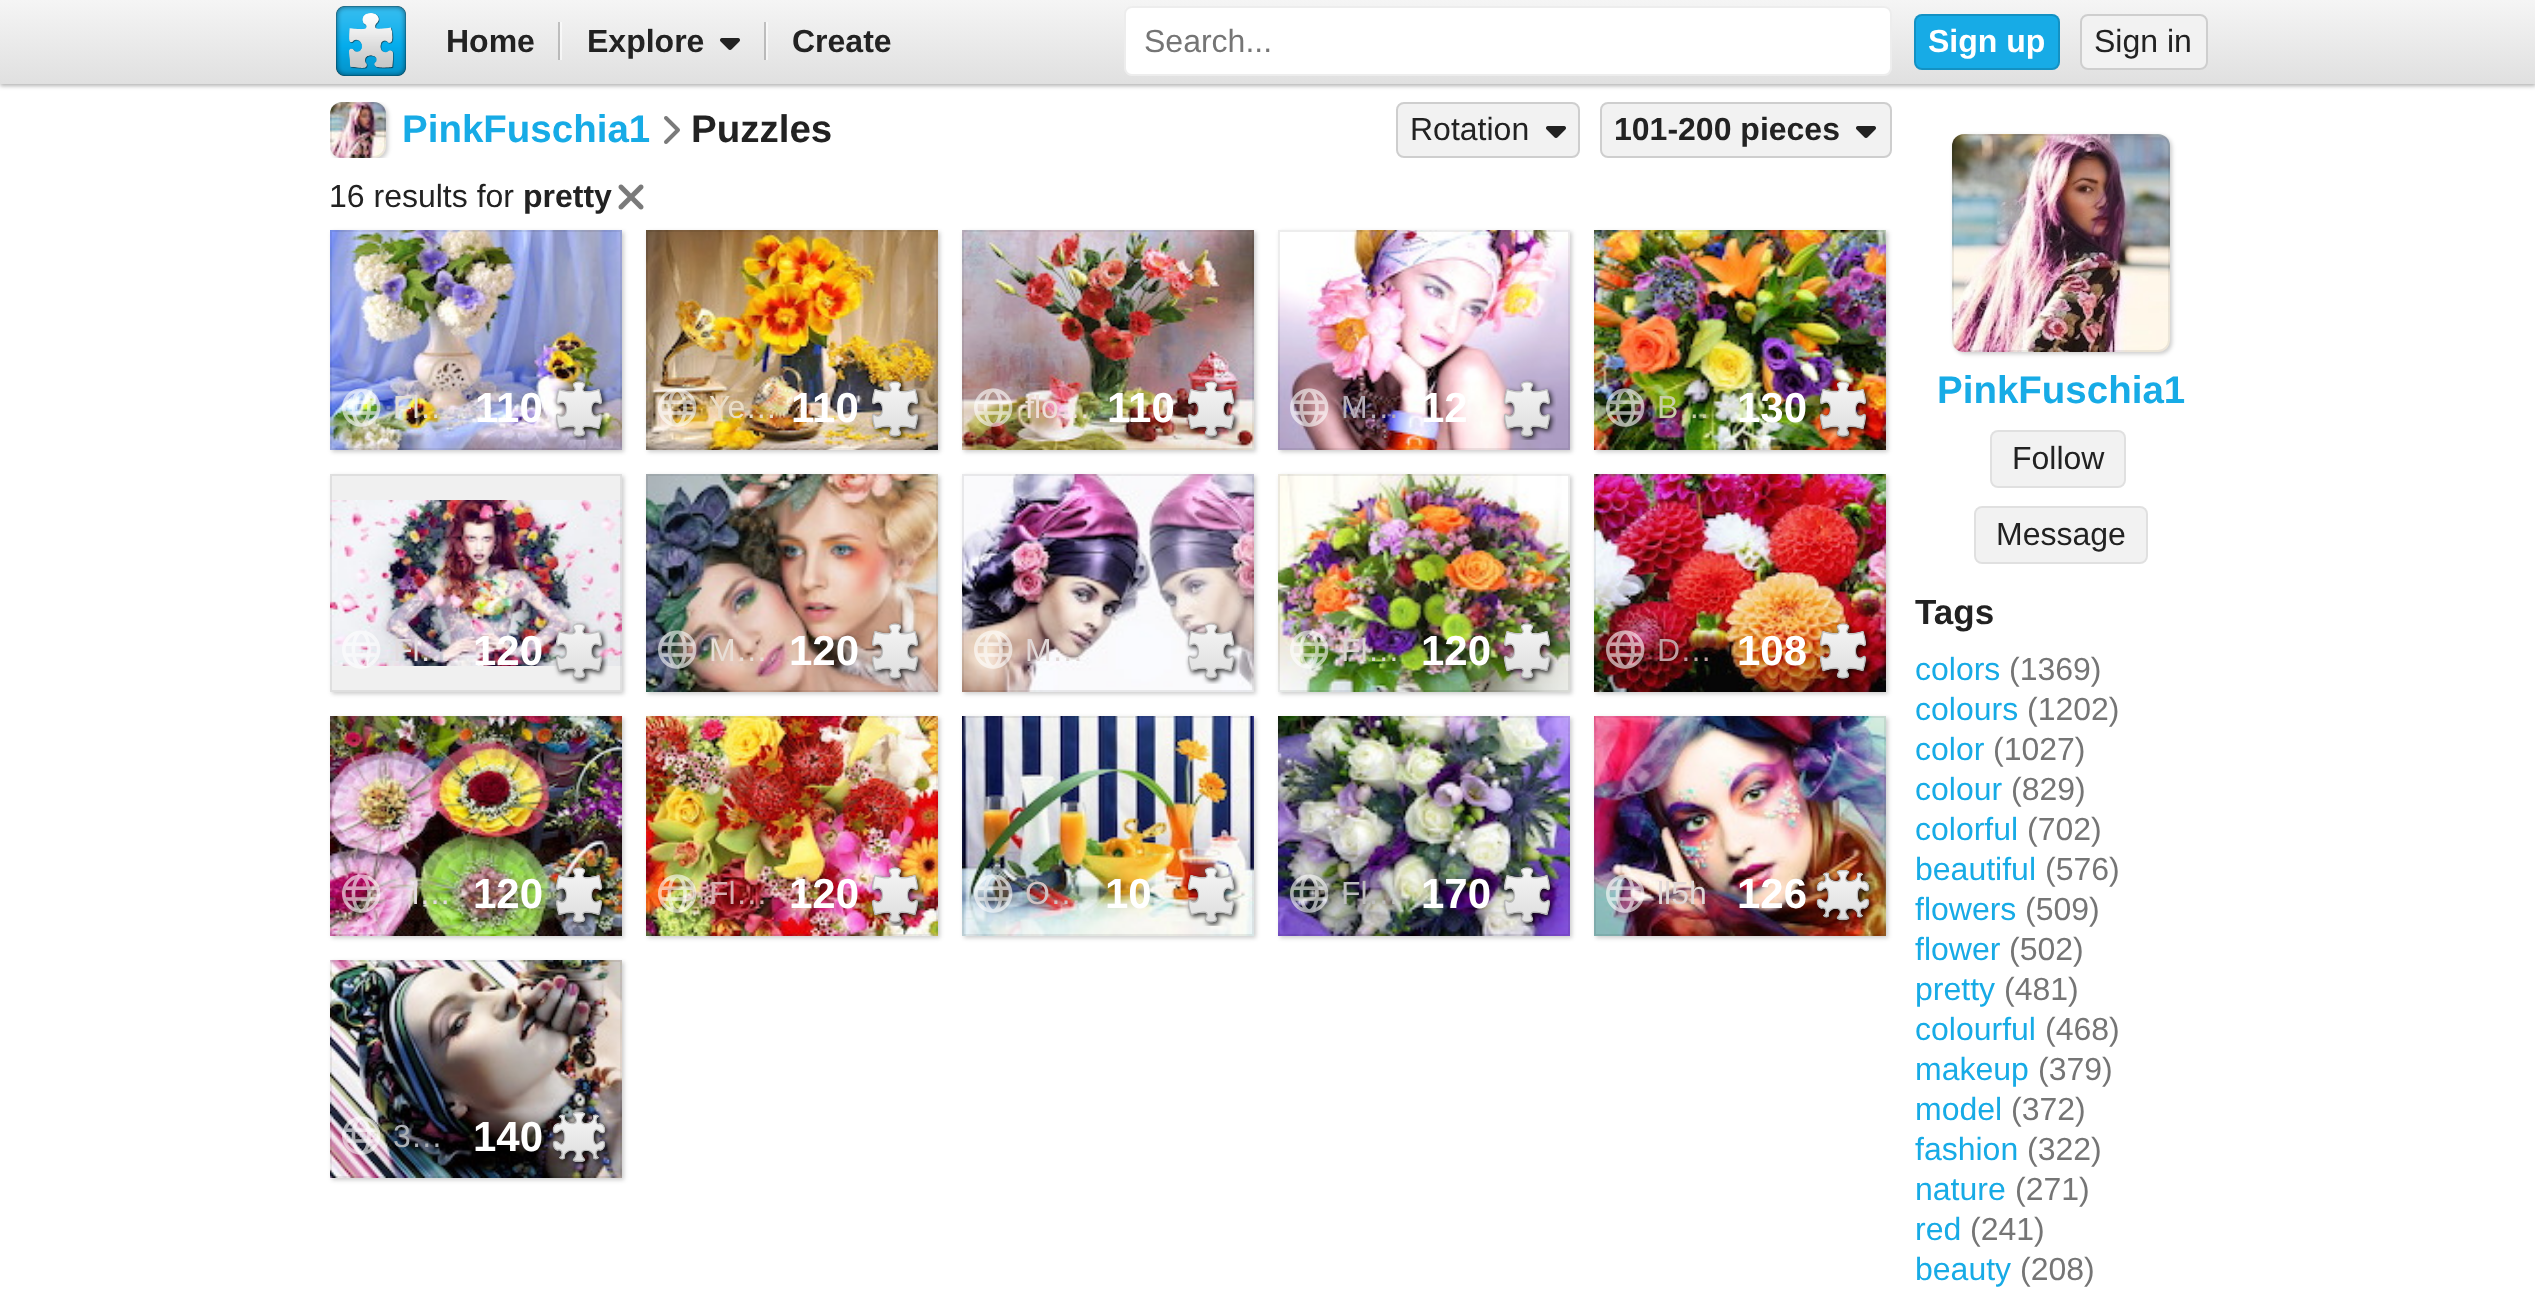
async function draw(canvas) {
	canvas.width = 2535;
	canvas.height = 1313;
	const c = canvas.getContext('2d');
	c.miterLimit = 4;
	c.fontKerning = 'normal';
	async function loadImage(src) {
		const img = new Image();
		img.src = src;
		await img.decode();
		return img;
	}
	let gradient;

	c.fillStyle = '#fff';
	c.fillRect(0, 0, 2535, 1313);
	c.fillStyle = '#0000004d';
	c.filter = 'blur(2px)';
	c.beginPath();
	c.rect(0, 2, 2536, 84);
	c.fill();
	c.filter = 'none';
	gradient = c.createLinearGradient(1268, 0, 1268, 84);
	gradient.addColorStop(0, '#f5f5f5');
	gradient.addColorStop(1, '#e0e0e0');
	c.fillStyle = gradient;
	c.fillRect(0, 0, 2535, 84);
	gradient = c.createLinearGradient(1268, 0, 1268, 84);
	gradient.addColorStop(0, '#c4c4c4');
	gradient.addColorStop(1, '#b3b3b3');
	c.fillStyle = gradient;
	c.fillRect(764, 22, 2, 38);
	gradient = c.createLinearGradient(1268, 0, 1268, 84);
	gradient.addColorStop(0, '#fbfbfb');
	gradient.addColorStop(1, '#f3f3f3');
	c.fillStyle = gradient;
	c.fillRect(766, 22, 2, 38);
	gradient = c.createLinearGradient(1268, 0, 1268, 84);
	gradient.addColorStop(0, '#c4c4c4');
	gradient.addColorStop(1, '#b3b3b3');
	c.fillStyle = gradient;
	c.fillRect(558, 22, 2, 38);
	gradient = c.createLinearGradient(1268, 0, 1268, 84);
	gradient.addColorStop(0, '#fbfbfb');
	gradient.addColorStop(1, '#f3f3f3');
	c.fillStyle = gradient;
	c.fillRect(560, 22, 2, 38);
	c.drawImage(await loadImage('img1.png'), 336, 6, 70, 70);
	c.font = 'bold 32px Liberation Sans';
	c.fillStyle = '#222';
	c.fillText('Home', 446, 52);
	c.fillText('Explore', 587, 52);
	c.drawImage(await loadImage('img2.png'), 720, 38, 20, 12);
	c.fillText('Create', 792, 52);
	c.fillStyle = '#fff';
	c.beginPath();
	c.roundRect(1124, 6, 768, 70, 8);
	c.fill();
	c.beginPath();
	c.roundRect(1125, 7, 766, 68, 7);
	c.strokeStyle = '#00000012';
	c.lineWidth = 2;
	c.stroke();
	c.font = '32px Liberation Sans';
	c.fillStyle = '#757575';
	c.fillText('Search...', 1144, 52);
	c.fillStyle = '#17abe6';
	c.beginPath();
	c.roundRect(1914, 14, 146, 56, 8);
	c.fill();
	c.beginPath();
	c.roundRect(1915, 15, 144, 54, 7);
	c.strokeStyle = '#00000026';
	c.stroke();
	c.font = 'bold 32px Liberation Sans';
	c.fillStyle = '#fff';
	c.fillText('Sign up', 1928, 52);
	c.fillStyle = '#f2f2f2';
	c.beginPath();
	c.roundRect(2080, 14, 128, 56, 8);
	c.fill();
	c.beginPath();
	c.roundRect(2081, 15, 126, 54, 7);
	c.stroke();
	c.font = '32px Liberation Sans';
	c.fillStyle = '#222';
	c.fillText('Sign in', 2094, 52);
	c.save();
	c.beginPath();
	c.rect(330, 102, 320, 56);
	c.clip();
	c.fillStyle = '#00000033';
	c.filter = 'blur(2px)';
	c.beginPath();
	c.roundRect(332, 104, 56, 56, 12);
	c.fill();
	c.filter = 'none';
	c.restore();
	c.drawImage(await loadImage('img3.png'), 330, 102, 56, 56);
	c.beginPath();
	c.roundRect(331, 103, 54, 54, 11);
	c.strokeStyle = '#00000012';
	c.stroke();
	c.font = 'bold 38.5px Liberation Sans';
	c.fillStyle = '#17abe6';
	c.fillText('PinkFuschia1', 402, 142);
	c.drawImage(await loadImage('img4.png'), 664, 116, 16, 28);
	c.fillStyle = '#222';
	c.fillText('Puzzles', 691, 142);
	c.fillStyle = '#f2f2f2';
	c.beginPath();
	c.roundRect(1396, 102, 184, 56, 8);
	c.fill();
	c.beginPath();
	c.roundRect(1397, 103, 182, 54, 7);
	c.strokeStyle = '#00000026';
	c.stroke();
	c.font = '32px Liberation Sans';
	c.fillStyle = '#222';
	c.fillText('Rotation', 1410, 140);
	c.drawImage(await loadImage('img5.png'), 1546, 126, 20, 12);
	c.fillStyle = '#f2f2f2';
	c.beginPath();
	c.roundRect(1600, 102, 292, 56, 8);
	c.fill();
	c.beginPath();
	c.roundRect(1601, 103, 290, 54, 7);
	c.stroke();
	c.font = 'bold 32px Liberation Sans';
	c.fillStyle = '#222';
	c.fillText('101-200 pieces', 1614, 140);
	c.drawImage(await loadImage('img5.png'), 1856, 126, 20, 12);
	c.font = '32px Liberation Sans';
	c.fillText('16 results for', 329, 207);
	c.font = 'bold 32px Liberation Sans';
	c.fillText('pretty', 523, 207);
	c.drawImage(await loadImage('img6.png'), 618, 184, 26, 26);
	c.fillStyle = '#00000033';
	c.filter = 'blur(2px)';
	c.beginPath();
	c.rect(332, 232, 292, 220);
	c.fill();
	c.filter = 'none';
	c.drawImage(await loadImage('img7.png'), 330, 230, 292, 220);
	c.strokeStyle = '#00000012';
	c.strokeRect(331, 231, 290, 218);
	c.drawImage(await loadImage('img8.png'), 342, 388, 39, 39);
	c.font = '32px Liberation Sans';
	c.fillStyle = '#e2ded5';
	c.fillText('Fl…', 393, 418);
	c.font = 'bold 42px Liberation Sans';
	c.fillStyle = '#fff';
	c.fillText('110', 475, 422);
	c.drawImage(await loadImage('img9.png'), 553, 379, 55, 61);
	c.fillStyle = '#00000033';
	c.filter = 'blur(2px)';
	c.beginPath();
	c.rect(648, 232, 292, 220);
	c.fill();
	c.filter = 'none';
	c.drawImage(await loadImage('img10.png'), 646, 230, 292, 220);
	c.strokeRect(647, 231, 290, 218);
	c.drawImage(await loadImage('img11.png'), 658, 388, 39, 39);
	c.font = '32px Liberation Sans';
	c.fillStyle = '#eaddc7';
	c.fillText('Ye…', 709, 418);
	c.font = 'bold 42px Liberation Sans';
	c.fillStyle = '#fff';
	c.fillText('110', 791, 422);
	c.drawImage(await loadImage('img12.png'), 869, 379, 55, 61);
	c.fillStyle = '#00000033';
	c.filter = 'blur(2px)';
	c.beginPath();
	c.rect(964, 232, 292, 220);
	c.fill();
	c.filter = 'none';
	c.drawImage(await loadImage('img13.png'), 962, 230, 292, 220);
	c.strokeRect(963, 231, 290, 218);
	c.drawImage(await loadImage('img14.png'), 974, 388, 39, 39);
	c.font = '32px Liberation Sans';
	c.fillStyle = '#eeded7';
	c.fillText('flo…', 1025, 418);
	c.font = 'bold 42px Liberation Sans';
	c.fillStyle = '#fff';
	c.fillText('110', 1107, 422);
	c.drawImage(await loadImage('img15.png'), 1185, 379, 55, 61);
	c.fillStyle = '#00000033';
	c.filter = 'blur(2px)';
	c.beginPath();
	c.rect(1280, 232, 292, 220);
	c.fill();
	c.filter = 'none';
	c.drawImage(await loadImage('img16.png'), 1278, 230, 292, 220);
	c.strokeRect(1279, 231, 290, 218);
	c.drawImage(await loadImage('img17.png'), 1290, 388, 39, 39);
	c.font = '32px Liberation Sans';
	c.fillStyle = '#b6aeb8';
	c.fillText('M…', 1341, 418);
	c.font = 'bold 42px Liberation Sans';
	c.fillStyle = '#fff';
	c.fillText('12', 1421, 422);
	c.drawImage(await loadImage('img18.png'), 1501, 379, 55, 61);
	c.fillStyle = '#00000033';
	c.filter = 'blur(2px)';
	c.beginPath();
	c.rect(1596, 232, 292, 220);
	c.fill();
	c.filter = 'none';
	c.drawImage(await loadImage('img19.png'), 1594, 230, 292, 220);
	c.strokeRect(1595, 231, 290, 218);
	c.drawImage(await loadImage('img20.png'), 1606, 388, 39, 39);
	c.font = '32px Liberation Sans';
	c.fillStyle = '#c8cea8';
	c.fillText('B…', 1657, 418);
	c.font = 'bold 42px Liberation Sans';
	c.fillStyle = '#fff';
	c.fillText('130', 1737, 422);
	c.drawImage(await loadImage('img21.png'), 1817, 379, 55, 61);
	c.fillStyle = '#00000033';
	c.filter = 'blur(2px)';
	c.beginPath();
	c.rect(332, 476, 292, 218);
	c.fill();
	c.filter = 'none';
	c.fillStyle = '#f0f0f0';
	c.fillRect(330, 474, 292, 218);
	c.drawImage(await loadImage('img22.png'), 330, 500, 292, 166);
	c.strokeRect(331, 475, 290, 216);
	c.drawImage(await loadImage('img23.png'), 342, 630, 39, 39);
	c.font = '32px Liberation Sans';
	c.fillStyle = '#e3dcdf';
	c.fillText('Fl…', 393, 661);
	c.font = 'bold 42px Liberation Sans';
	c.fillStyle = '#fff';
	c.fillText('120', 473, 665);
	c.drawImage(await loadImage('img24.png'), 553, 621, 55, 63);
	c.fillStyle = '#00000033';
	c.filter = 'blur(2px)';
	c.beginPath();
	c.rect(648, 476, 292, 218);
	c.fill();
	c.filter = 'none';
	c.drawImage(await loadImage('img25.png'), 646, 474, 292, 218);
	c.strokeRect(647, 475, 290, 216);
	c.drawImage(await loadImage('img26.png'), 658, 630, 39, 39);
	c.font = '32px Liberation Sans';
	c.fillStyle = '#e8ded6';
	c.fillText('M…', 709, 661);
	c.font = 'bold 42px Liberation Sans';
	c.fillStyle = '#fff';
	c.fillText('120', 789, 665);
	c.drawImage(await loadImage('img27.png'), 869, 621, 55, 63);
	c.fillStyle = '#00000033';
	c.filter = 'blur(2px)';
	c.beginPath();
	c.rect(964, 476, 292, 218);
	c.fill();
	c.filter = 'none';
	c.drawImage(await loadImage('img28.png'), 962, 474, 292, 218);
	c.strokeRect(963, 475, 290, 216);
	c.drawImage(await loadImage('img29.png'), 974, 630, 39, 39);
	c.font = '32px Liberation Sans';
	c.fillStyle = '#e0d7d6';
	c.fillText('M…', 1025, 661);
	c.drawImage(await loadImage('img30.png'), 1185, 621, 55, 63);
	c.fillStyle = '#00000033';
	c.filter = 'blur(2px)';
	c.beginPath();
	c.rect(1280, 476, 292, 218);
	c.fill();
	c.filter = 'none';
	c.drawImage(await loadImage('img31.png'), 1278, 474, 292, 218);
	c.strokeRect(1279, 475, 290, 216);
	c.drawImage(await loadImage('img32.png'), 1290, 630, 39, 39);
	c.fillStyle = '#d9d6d0';
	c.fillText('Fl…', 1341, 661);
	c.font = 'bold 42px Liberation Sans';
	c.fillStyle = '#fff';
	c.fillText('120', 1421, 665);
	c.drawImage(await loadImage('img33.png'), 1502, 621, 54, 63);
	c.fillStyle = '#00000033';
	c.filter = 'blur(2px)';
	c.beginPath();
	c.rect(1596, 476, 292, 218);
	c.fill();
	c.filter = 'none';
	c.drawImage(await loadImage('img34.png'), 1594, 474, 292, 218);
	c.strokeRect(1595, 475, 290, 216);
	c.drawImage(await loadImage('img35.png'), 1606, 630, 39, 39);
	c.font = '32px Liberation Sans';
	c.fillStyle = '#c09ea1';
	c.fillText('D…', 1657, 661);
	c.font = 'bold 42px Liberation Sans';
	c.fillStyle = '#fff';
	c.fillText('108', 1737, 665);
	c.drawImage(await loadImage('img36.png'), 1817, 621, 55, 63);
	c.fillStyle = '#00000033';
	c.filter = 'blur(2px)';
	c.beginPath();
	c.rect(332, 718, 292, 220);
	c.fill();
	c.filter = 'none';
	c.drawImage(await loadImage('img37.png'), 330, 716, 292, 220);
	c.strokeRect(331, 717, 290, 218);
	c.drawImage(await loadImage('img38.png'), 342, 874, 39, 39);
	c.font = '32px Liberation Sans';
	c.fillStyle = '#e3dcdf';
	c.fillText('l…', 412, 904);
	c.font = 'bold 42px Liberation Sans';
	c.fillStyle = '#fff';
	c.fillText('120', 473, 908);
	c.drawImage(await loadImage('img39.png'), 553, 865, 55, 61);
	c.fillStyle = '#00000033';
	c.filter = 'blur(2px)';
	c.beginPath();
	c.rect(648, 718, 292, 220);
	c.fill();
	c.filter = 'none';
	c.drawImage(await loadImage('img40.png'), 646, 716, 292, 220);
	c.strokeRect(647, 717, 290, 218);
	c.drawImage(await loadImage('img41.png'), 658, 874, 39, 39);
	c.font = '32px Liberation Sans';
	c.fillStyle = '#d7afb1';
	c.fillText('Fl…', 709, 904);
	c.font = 'bold 42px Liberation Sans';
	c.fillStyle = '#fff';
	c.fillText('120', 789, 908);
	c.drawImage(await loadImage('img42.png'), 869, 865, 55, 61);
	c.fillStyle = '#00000033';
	c.filter = 'blur(2px)';
	c.beginPath();
	c.rect(964, 718, 292, 220);
	c.fill();
	c.filter = 'none';
	c.drawImage(await loadImage('img43.png'), 962, 716, 292, 220);
	c.strokeRect(963, 717, 290, 218);
	c.drawImage(await loadImage('img44.png'), 974, 874, 39, 39);
	c.font = '32px Liberation Sans';
	c.fillStyle = '#d1c2c3';
	c.fillText('O…', 1025, 904);
	c.font = 'bold 42px Liberation Sans';
	c.fillStyle = '#fff';
	c.fillText('10', 1105, 908);
	c.drawImage(await loadImage('img45.png'), 1185, 865, 55, 61);
	c.fillStyle = '#00000033';
	c.filter = 'blur(2px)';
	c.beginPath();
	c.rect(1280, 718, 292, 220);
	c.fill();
	c.filter = 'none';
	c.drawImage(await loadImage('img46.png'), 1278, 716, 292, 220);
	c.strokeRect(1279, 717, 290, 218);
	c.drawImage(await loadImage('img47.png'), 1290, 874, 39, 39);
	c.font = '32px Liberation Sans';
	c.fillStyle = '#bebdbf';
	c.fillText('Fl…', 1341, 904);
	c.font = 'bold 42px Liberation Sans';
	c.fillStyle = '#fff';
	c.fillText('170', 1421, 908);
	c.drawImage(await loadImage('img48.png'), 1501, 865, 55, 61);
	c.fillStyle = '#00000033';
	c.filter = 'blur(2px)';
	c.beginPath();
	c.rect(1596, 718, 292, 220);
	c.fill();
	c.filter = 'none';
	c.drawImage(await loadImage('img49.png'), 1594, 716, 292, 220);
	c.strokeRect(1595, 717, 290, 218);
	c.drawImage(await loadImage('img50.png'), 1606, 874, 39, 39);
	c.font = '32px Liberation Sans';
	c.fillStyle = '#e0d7d6';
	c.fillText('ll5h', 1657, 904);
	c.font = 'bold 42px Liberation Sans';
	c.fillStyle = '#fff';
	c.fillText('126', 1737, 908);
	c.drawImage(await loadImage('img51.png'), 1815, 867, 61, 59);
	c.fillStyle = '#00000033';
	c.filter = 'blur(2px)';
	c.beginPath();
	c.rect(332, 962, 292, 218);
	c.fill();
	c.filter = 'none';
	c.drawImage(await loadImage('img52.png'), 330, 960, 292, 218);
	c.strokeRect(331, 961, 290, 216);
	c.drawImage(await loadImage('img53.png'), 342, 1116, 39, 39);
	c.font = '32px Liberation Sans';
	c.fillStyle = '#adb1b6';
	c.fillText('3…', 393, 1147);
	c.font = 'bold 42px Liberation Sans';
	c.fillStyle = '#fff';
	c.fillText('140', 473, 1151);
	c.drawImage(await loadImage('img54.png'), 551, 1110, 60, 58);
	c.fillStyle = '#00000033';
	c.filter = 'blur(2px)';
	c.beginPath();
	c.roundRect(1954, 136, 218, 218, 12);
	c.fill();
	c.filter = 'none';
	c.drawImage(await loadImage('img55.png'), 1952, 134, 218, 218);
	c.beginPath();
	c.roundRect(1953, 135, 216, 216, 11);
	c.stroke();
	c.font = 'bold 38.5px Liberation Sans';
	c.fillStyle = '#17abe6';
	c.fillText('PinkFuschia1', 1937, 403);
	c.fillStyle = '#f2f2f2';
	c.beginPath();
	c.roundRect(1990, 430, 136, 58, 8);
	c.fill();
	c.beginPath();
	c.roundRect(1991, 431, 134, 56, 7);
	c.stroke();
	c.font = '32px Liberation Sans';
	c.fillStyle = '#222';
	c.fillText('Follow', 2012, 469);
	c.fillStyle = '#f2f2f2';
	c.beginPath();
	c.roundRect(1974, 506, 174, 58, 8);
	c.fill();
	c.beginPath();
	c.roundRect(1975, 507, 172, 56, 7);
	c.stroke();
	c.fillStyle = '#222';
	c.fillText('Message', 1996, 545);
	c.font = 'bold 35px Liberation Sans';
	c.fillText('Tags', 1915, 624);
	c.font = '32px Liberation Sans';
	c.fillStyle = '#17abe6';
	c.fillText('colors', 1915, 680);
	c.fillStyle = '#757575';
	c.fillText('(1369)', 2009, 680);
	c.fillStyle = '#17abe6';
	c.fillText('colours', 1915, 720);
	c.fillStyle = '#757575';
	c.fillText('(1202)', 2027, 720);
	c.fillStyle = '#17abe6';
	c.fillText('color', 1915, 760);
	c.fillStyle = '#757575';
	c.fillText('(1027)', 1993, 760);
	c.fillStyle = '#17abe6';
	c.fillText('colour', 1915, 800);
	c.fillStyle = '#757575';
	c.fillText('(829)', 2011, 800);
	c.fillStyle = '#17abe6';
	c.fillText('colorful', 1915, 840);
	c.fillStyle = '#757575';
	c.fillText('(702)', 2027, 840);
	c.fillStyle = '#17abe6';
	c.fillText('beautiful', 1915, 880);
	c.fillStyle = '#757575';
	c.fillText('(576)', 2045, 880);
	c.fillStyle = '#17abe6';
	c.fillText('flowers', 1915, 920);
	c.fillStyle = '#757575';
	c.fillText('(509)', 2025, 920);
	c.fillStyle = '#17abe6';
	c.fillText('flower', 1915, 960);
	c.fillStyle = '#757575';
	c.fillText('(502)', 2009, 960);
	c.fillStyle = '#17abe6';
	c.fillText('pretty', 1915, 1000);
	c.fillStyle = '#757575';
	c.fillText('(481)', 2004, 1000);
	c.fillStyle = '#17abe6';
	c.fillText('colourful', 1915, 1040);
	c.fillStyle = '#757575';
	c.fillText('(468)', 2045, 1040);
	c.fillStyle = '#17abe6';
	c.fillText('makeup', 1915, 1080);
	c.fillStyle = '#757575';
	c.fillText('(379)', 2038, 1080);
	c.fillStyle = '#17abe6';
	c.fillText('model', 1915, 1120);
	c.fillStyle = '#757575';
	c.fillText('(372)', 2011, 1120);
	c.fillStyle = '#17abe6';
	c.fillText('fashion', 1915, 1160);
	c.fillStyle = '#757575';
	c.fillText('(322)', 2027, 1160);
	c.fillStyle = '#17abe6';
	c.fillText('nature', 1915, 1200);
	c.fillStyle = '#757575';
	c.fillText('(271)', 2015, 1200);
	c.fillStyle = '#17abe6';
	c.fillText('red', 1915, 1240);
	c.fillStyle = '#757575';
	c.fillText('(241)', 1970, 1240);
	c.fillStyle = '#17abe6';
	c.fillText('beauty', 1915, 1280);
	c.fillStyle = '#757575';
	c.fillText('(208)', 2020, 1280);
}

draw(document.querySelector('canvas'));
